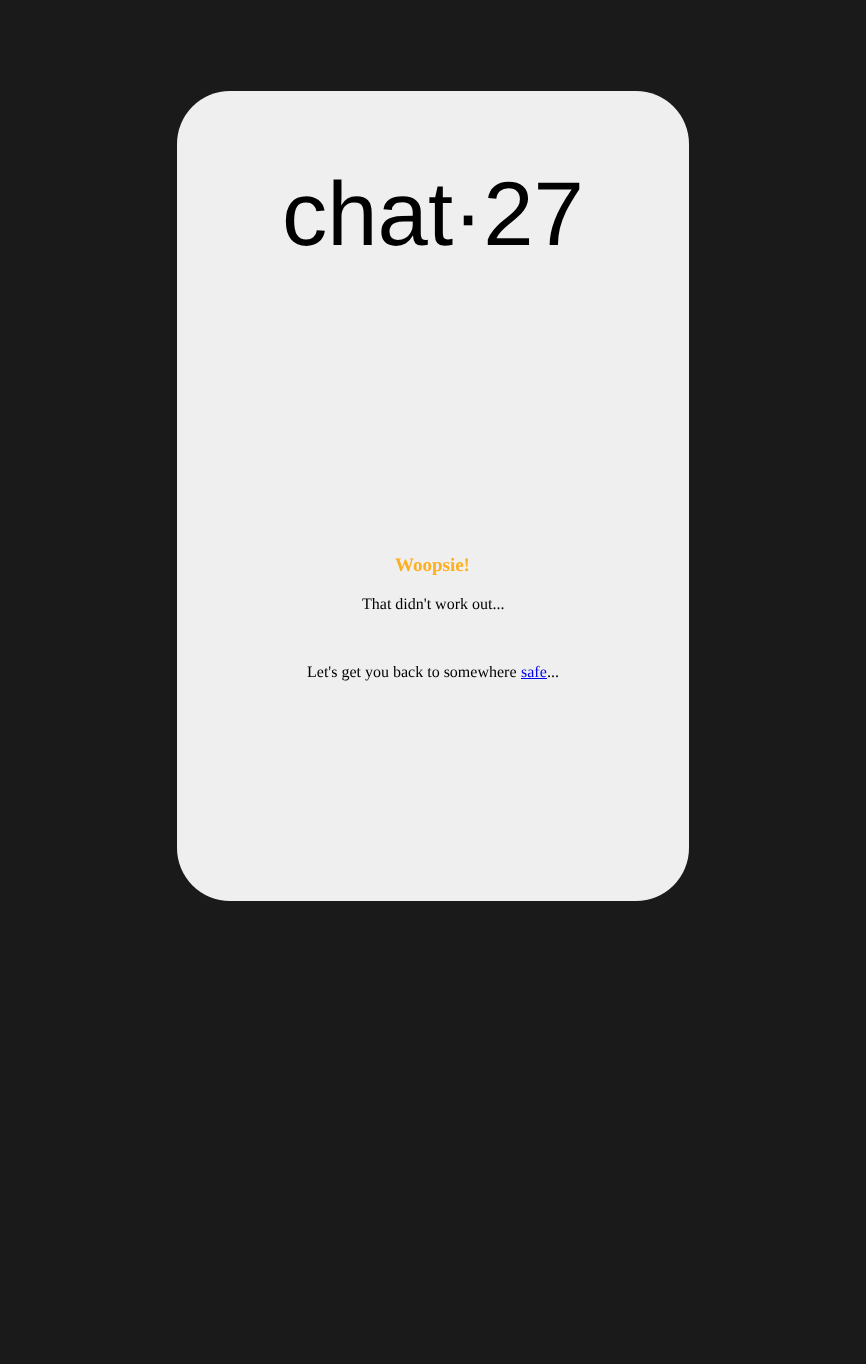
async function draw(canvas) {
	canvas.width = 866;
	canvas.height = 1364;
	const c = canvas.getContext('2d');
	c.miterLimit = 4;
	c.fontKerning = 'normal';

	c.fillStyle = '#1a1a1a';
	c.fillRect(0, 0, 866, 1364);
	c.fillStyle = '#efefef';
	c.beginPath();
	c.roundRect(177, 91, 512, 810, 53);
	c.fill();
	c.font = '90.5px Liberation Sans';
	c.fillStyle = '#000';
	c.fillText('chat·27', 282, 245);
	c.font = 'bold 19px Liberation Serif';
	c.fillStyle = '#fcaf20';
	c.fillText('Woopsie!', 395, 571);
	c.font = '16px Liberation Serif';
	c.fillStyle = '#000';
	c.fillText('That didn\'t work out...', 362, 609);
	c.fillText('Let\'s get you back to somewhere', 307, 677);
	c.fillStyle = '#00e';
	c.fillText('safe', 521, 677);
	c.fillRect(521, 678, 26, 1);
	c.fillStyle = '#000';
	c.fillText('...', 547, 677);
}

draw(document.querySelector('canvas'));
